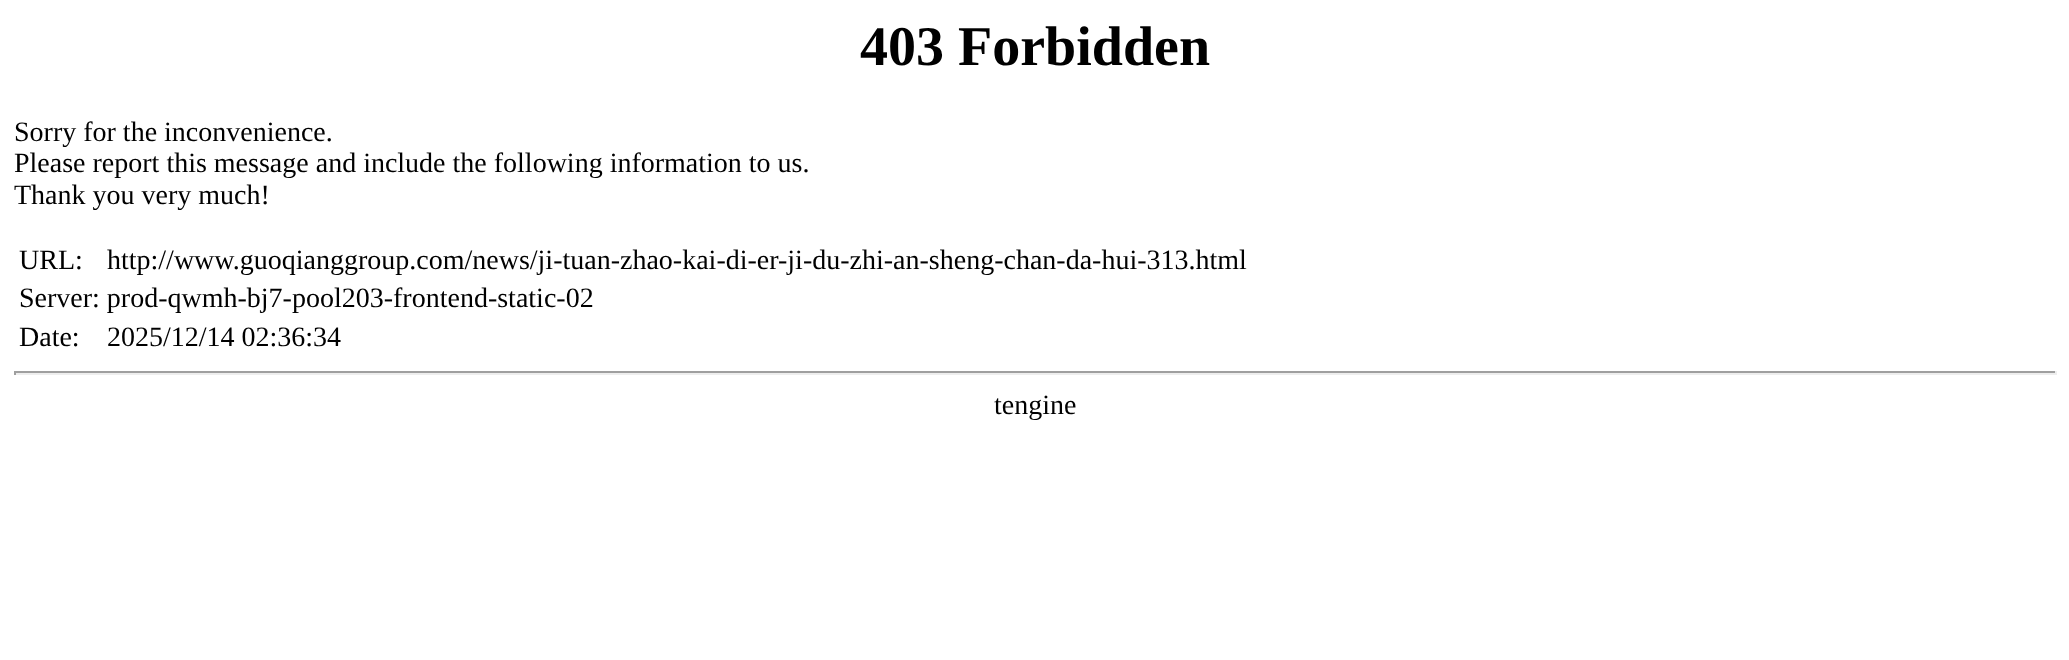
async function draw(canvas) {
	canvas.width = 2069;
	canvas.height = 660;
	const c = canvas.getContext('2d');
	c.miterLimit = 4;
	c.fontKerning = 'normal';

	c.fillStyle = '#fff';
	c.fillRect(0, 0, 2069, 660);
	c.font = 'bold 56px Liberation Serif';
	c.fillStyle = '#000';
	c.fillText('403 Forbidden', 860, 65);
	c.font = '28px Liberation Serif';
	for (const [text, x, y] of [
		['Sorry for the inconvenience.', 14, 141],
		['Please report this message and include the following information to us.', 14, 172],
		['Thank you very much!', 14, 204],
		['URL:', 19, 269],
		['http://www.guoqianggroup.com/news/ji-tuan-zhao-kai-di-er-ji-du-zhi-an-sheng-chan-da-hui-313.html', 107, 269],
		['Server: prod-qwmh-bj7-pool203-frontend-static-02', 19, 307],
		['Date:', 19, 346],
		['2025/12/14 02:36:34', 107, 346],
	]) {
		c.fillText(text, x, y);
	}
	for (const [x, y, w, h, color] of [
		[14, 371, 2042, 2, '#9f9f9f'],
		[2055, 371, 2, 4, '#eee'],
		[14, 373, 2042, 2, '#eee'],
		[14, 371, 2, 4, '#9f9f9f'],
	]) {
		c.fillStyle = color;
		c.fillRect(x, y, w, h);
	}
	c.fillStyle = '#000';
	c.fillText('tengine', 994, 414);
}

draw(document.querySelector('canvas'));
